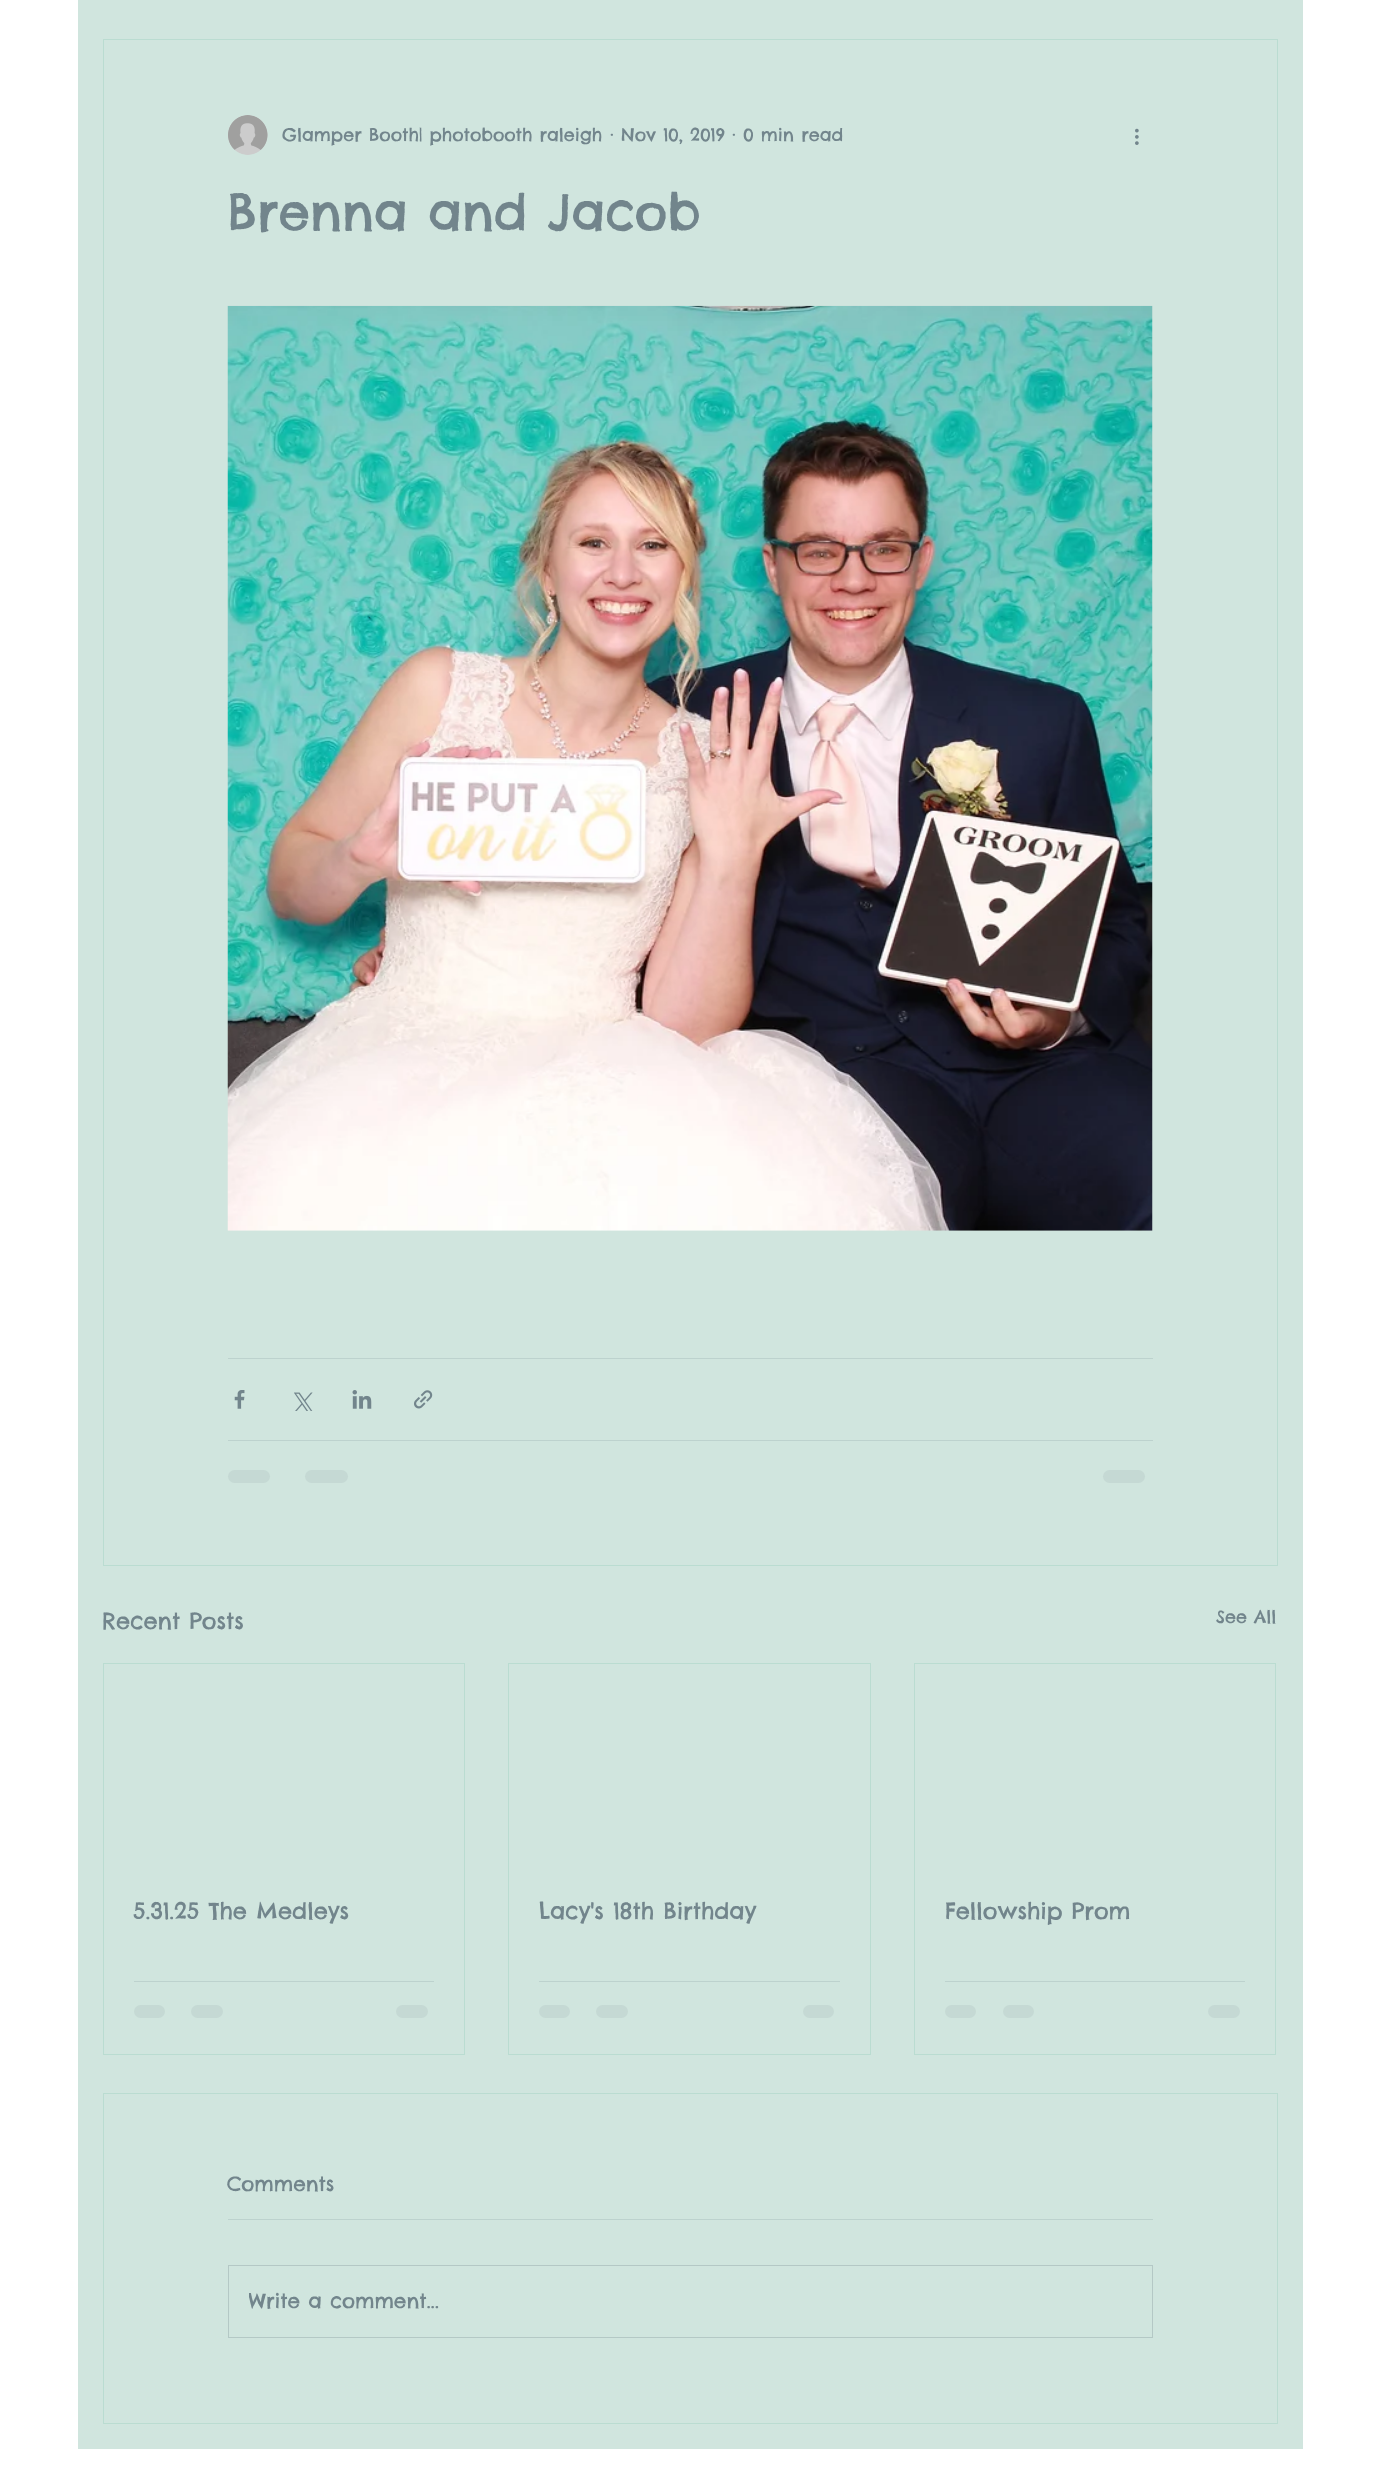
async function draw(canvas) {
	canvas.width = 1378;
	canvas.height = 2479;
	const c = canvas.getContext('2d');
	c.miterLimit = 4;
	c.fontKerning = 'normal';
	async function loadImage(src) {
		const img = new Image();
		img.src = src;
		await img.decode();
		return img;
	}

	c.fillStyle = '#fff';
	c.fillRect(0, 0, 1378, 2479);
	c.fillStyle = '#d0e5de';
	c.fillRect(78, 0, 1225, 2449);
	c.strokeStyle = '#badcd1';
	c.strokeRect(103.5, 39.5, 1174, 1526);
	c.drawImage(await loadImage('img1.png'), 228, 115, 40, 40);
	c.font = '17.5px Chelsea Market';
	c.fillStyle = '#72858c';
	for (const [text, x, y] of [
		['Glamper Booth| photobooth raleigh', 282, 141],
		['·', 610, 141],
		['Nov 10, 2019', 621, 141],
		['·', 732, 141],
		['0 min read', 743, 141],
	]) {
		c.fillText(text, x, y);
	}
	c.drawImage(await loadImage('img2.png'), 1135, 128, 4, 17);
	c.font = '50px Chelsea Market';
	c.fillText('Brenna and Jacob', 227, 230);
	c.drawImage(await loadImage('img3.png'), 227, 305, 926, 926);
	c.fillStyle = '#bdd2ce';
	c.fillRect(228, 1358, 925, 1);
	c.drawImage(await loadImage('img4.png'), 234, 1390, 11, 19);
	c.drawImage(await loadImage('img5.png'), 294, 1392, 19, 19);
	c.drawImage(await loadImage('img6.png'), 352, 1390, 20, 19);
	c.drawImage(await loadImage('img7.png'), 414, 1390, 19, 19);
	c.fillRect(228, 1440, 925, 1);
	c.fillStyle = '#c5d9d4';
	c.beginPath();
	c.roundRect(228, 1470, 42, 13, 6.5);
	c.fill();
	c.beginPath();
	c.roundRect(305, 1470, 43, 13, 6.5);
	c.fill();
	c.beginPath();
	c.roundRect(1103, 1470, 42, 13, 6.5);
	c.fill();
	c.font = '22.5px Chelsea Market';
	c.fillStyle = '#72858c';
	c.fillText('Recent Posts', 102, 1629);
	c.font = '17.5px Chelsea Market';
	c.fillText('See All', 1216, 1623);
	c.strokeRect(103.5, 1663.5, 361, 391);
	c.font = '22.5px Chelsea Market';
	c.fillText('5.31.25 The Medleys', 133, 1919);
	c.fillStyle = '#bdd2ce';
	c.fillRect(134, 1981, 300, 1);
	c.fillStyle = '#c5d9d4';
	c.beginPath();
	c.roundRect(134, 2005, 31, 13, 6.5);
	c.fill();
	c.beginPath();
	c.roundRect(191, 2005, 32, 13, 6.5);
	c.fill();
	c.beginPath();
	c.roundRect(396, 2005, 32, 13, 6.5);
	c.fill();
	c.strokeRect(508.5, 1663.5, 362, 391);
	c.fillStyle = '#72858c';
	c.fillText('Lacy\'s 18th Birthday', 539, 1919);
	c.fillStyle = '#bdd2ce';
	c.fillRect(539, 1981, 301, 1);
	c.fillStyle = '#c5d9d4';
	c.beginPath();
	c.roundRect(539, 2005, 31, 13, 6.5);
	c.fill();
	c.beginPath();
	c.roundRect(596, 2005, 32, 13, 6.5);
	c.fill();
	c.beginPath();
	c.roundRect(803, 2005, 31, 13, 6.5);
	c.fill();
	c.strokeRect(914.5, 1663.5, 361, 391);
	c.fillStyle = '#72858c';
	c.fillText('Fellowship Prom', 945, 1919);
	c.fillStyle = '#bdd2ce';
	c.fillRect(945, 1981, 300, 1);
	c.fillStyle = '#c5d9d4';
	c.beginPath();
	c.roundRect(945, 2005, 31, 13, 6.5);
	c.fill();
	c.beginPath();
	c.roundRect(1003, 2005, 31, 13, 6.5);
	c.fill();
	c.beginPath();
	c.roundRect(1208, 2005, 32, 13, 6.5);
	c.fill();
	c.strokeRect(103.5, 2093.5, 1174, 330);
	c.font = '20px Chelsea Market';
	c.fillStyle = '#72858c';
	c.fillText('Comments', 227, 2191);
	c.fillStyle = '#bdd2ce';
	c.fillRect(228, 2219, 925, 1);
	c.strokeStyle = '#b4c8c5';
	c.strokeRect(228.5, 2265.5, 924, 72);
	c.save();
	c.beginPath();
	c.rect(249, 2286, 882, 30);
	c.clip();
	c.fillStyle = '#72858c';
	c.fillText('Write a comment...', 248, 2308);
	c.restore();
}

draw(document.querySelector('canvas'));
